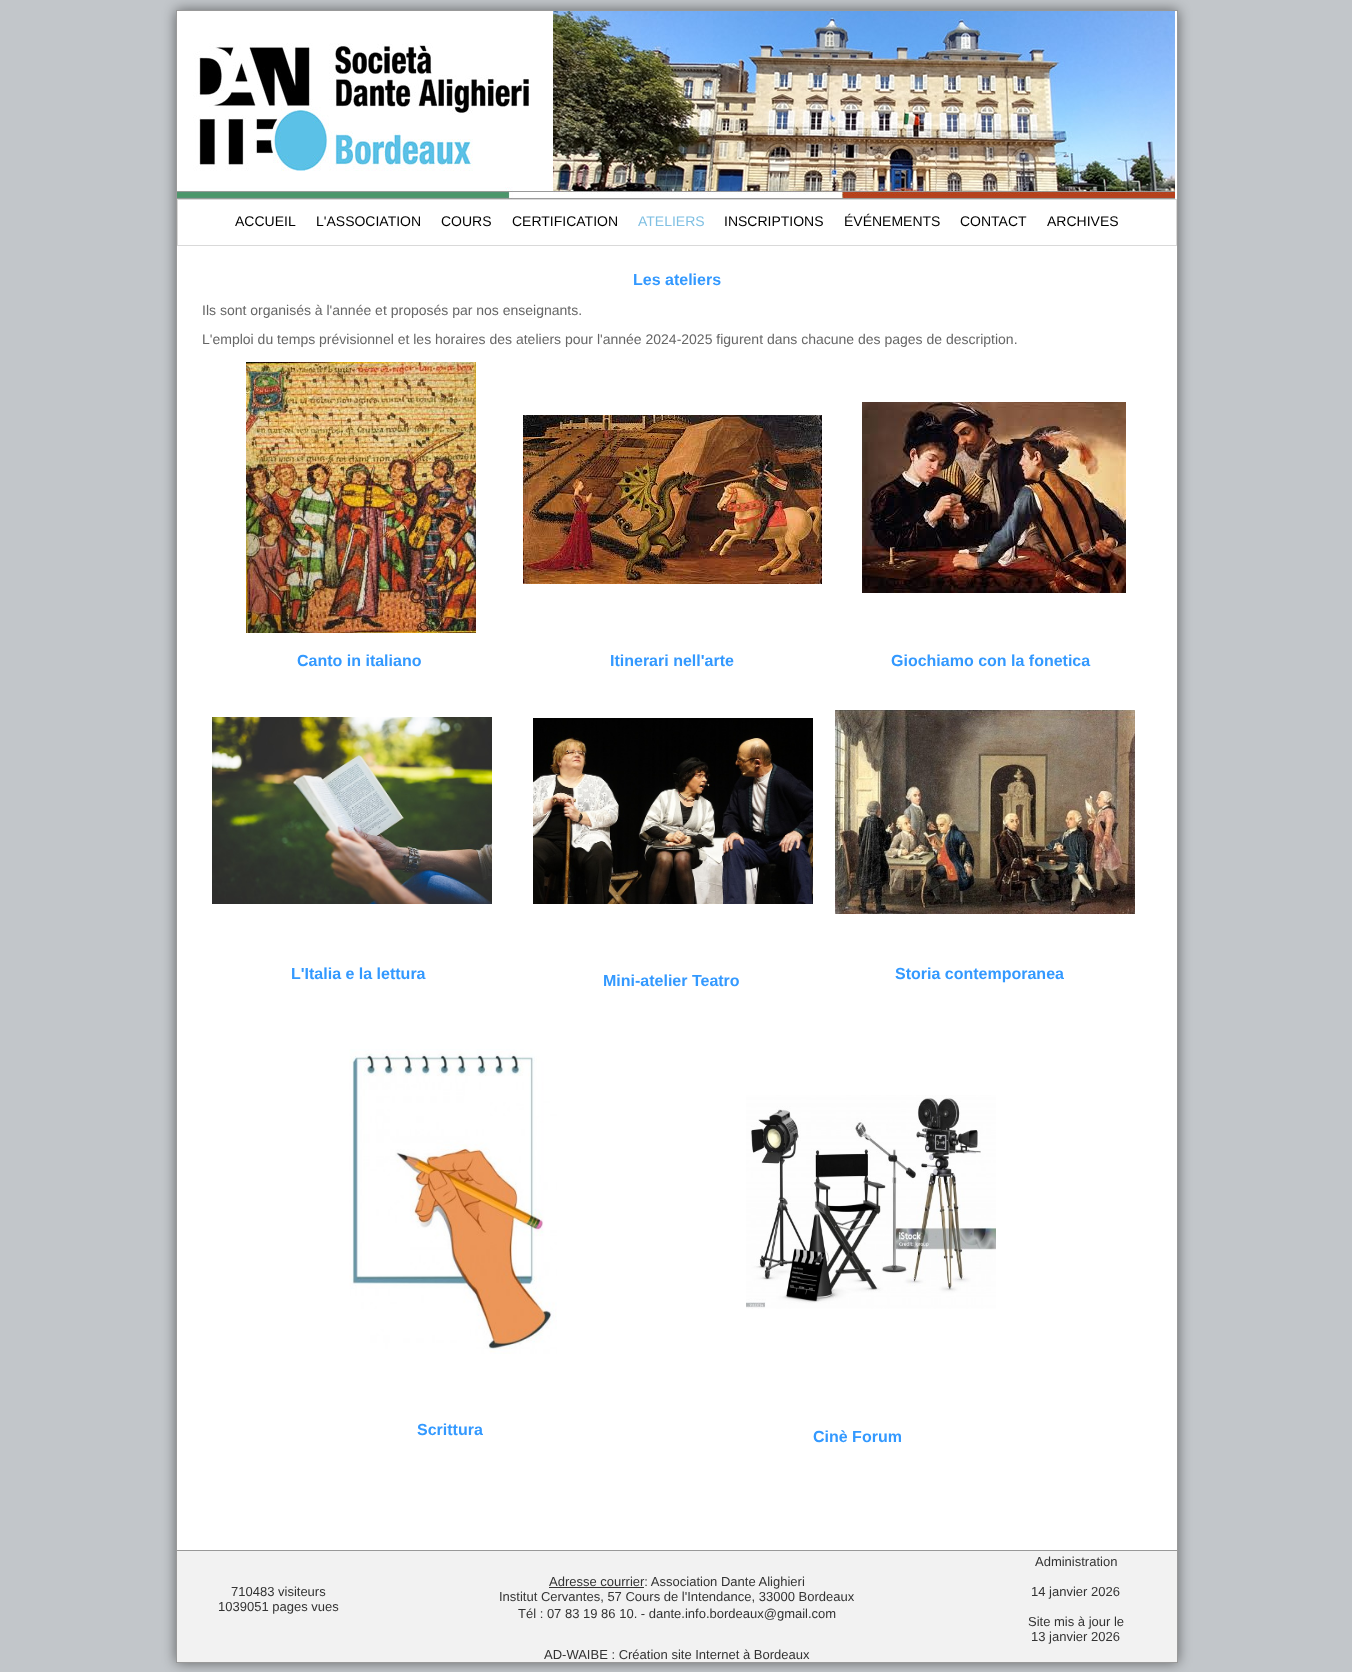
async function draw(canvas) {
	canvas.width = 1352;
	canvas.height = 1672;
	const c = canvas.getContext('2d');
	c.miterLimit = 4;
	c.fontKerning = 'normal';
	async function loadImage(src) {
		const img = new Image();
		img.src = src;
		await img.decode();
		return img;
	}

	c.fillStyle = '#c2c6ca';
	c.fillRect(0, 0, 1352, 1672);
	c.fillStyle = '#00000080';
	c.filter = 'blur(6.5px)';
	c.beginPath();
	c.rect(176, 10, 1002, 1653);
	c.fill();
	c.filter = 'none';
	c.fillStyle = '#fff';
	c.fillRect(177, 11, 1000, 1539);
	c.strokeStyle = '#999';
	c.strokeRect(176.5, 10.5, 1001, 1652);
	c.drawImage(await loadImage('img1.png'), 177, 11, 998, 188);
	c.strokeStyle = '#d9d9d9';
	c.strokeRect(177.5, 199.5, 999, 46);
	c.font = '14px Liberation Sans';
	c.fillStyle = '#000';
	for (const [text, x, y] of [
		['ACCUEIL', 235, 226],
		['L\'ASSOCIATION', 316, 226],
		['COURS', 441, 226],
		['CERTIFICATION', 512, 226],
	]) {
		c.fillText(text, x, y);
	}
	c.fillStyle = '#80c0e3';
	c.fillText('ATELIERS', 638, 226);
	c.fillStyle = '#000';
	for (const [text, x, y] of [
		['INSCRIPTIONS', 724, 226],
		['ÉVÉNEMENTS', 844, 226],
		['CONTACT', 960, 226],
		['ARCHIVES', 1047, 226],
	]) {
		c.fillText(text, x, y);
	}
	c.font = 'bold 16px Liberation Sans';
	c.fillStyle = '#39f';
	c.fillText('Les ateliers', 633, 285);
	c.font = '14px Liberation Sans';
	c.fillStyle = '#666';
	c.fillText('Ils sont organisés à l\'année et proposés par nos enseignants.', 202, 315);
	c.fillText('L\'emploi du temps prévisionnel et les horaires des ateliers pour l\'année 2024-2025 figurent dans chacune des pages de description.', 202, 344);
	c.drawImage(await loadImage('img2.png'), 246, 362, 230, 271);
	c.drawImage(await loadImage('img3.png'), 523, 415, 299, 169);
	c.drawImage(await loadImage('img4.png'), 862, 402, 264, 191);
	c.font = 'bold 16px Liberation Sans';
	c.fillStyle = '#39f';
	for (const [text, x, y] of [
		['Canto in italiano', 297, 666],
		['Itinerari nell\'arte', 610, 666],
		['Giochiamo con la fonetica', 891, 666],
	]) {
		c.fillText(text, x, y);
	}
	c.drawImage(await loadImage('img5.png'), 212, 717, 280, 187);
	c.drawImage(await loadImage('img6.png'), 533, 718, 280, 186);
	c.drawImage(await loadImage('img7.png'), 835, 710, 300, 204);
	for (const [text, x, y] of [
		['L\'Italia e la lettura', 291, 979],
		['Mini-atelier Teatro', 603, 986],
		['Storia contemporanea', 895, 979],
	]) {
		c.fillText(text, x, y);
	}
	c.drawImage(await loadImage('img8.png'), 349, 1049, 208, 305);
	c.drawImage(await loadImage('img9.png'), 746, 1095, 250, 214);
	c.fillText('Scrittura', 417, 1435);
	c.fillText('Cinè Forum', 813, 1442);
	c.fillStyle = '#f2f2f2';
	c.fillRect(177, 1551, 1000, 111);
	c.fillStyle = '#999';
	c.fillRect(177, 1550, 1000, 1);
	c.font = '13px Liberation Sans';
	c.fillStyle = '#333';
	c.fillText('710483 visiteurs', 231, 1596);
	c.fillText('1039051 pages vues', 218, 1611);
	c.fillRect(549, 1587, 95, 1);
	for (const [text, x, y] of [
		['Adresse courrier: Association Dante Alighieri', 549, 1586],
		['Institut Cervantes, 57 Cours de l\'Intendance, 33000 Bordeaux', 499, 1601],
		['Tél : 07 83 19 86 10. - dante.info.bordeaux@gmail.com', 518, 1618],
		['Administration', 1035, 1566],
		['14 janvier 2026', 1031, 1596],
		['Site mis à jour le', 1028, 1626],
		['13 janvier 2026', 1031, 1641],
		['AD-WAIBE : Création site Internet à Bordeaux', 544, 1659],
	]) {
		c.fillText(text, x, y);
	}
}

draw(document.querySelector('canvas'));
